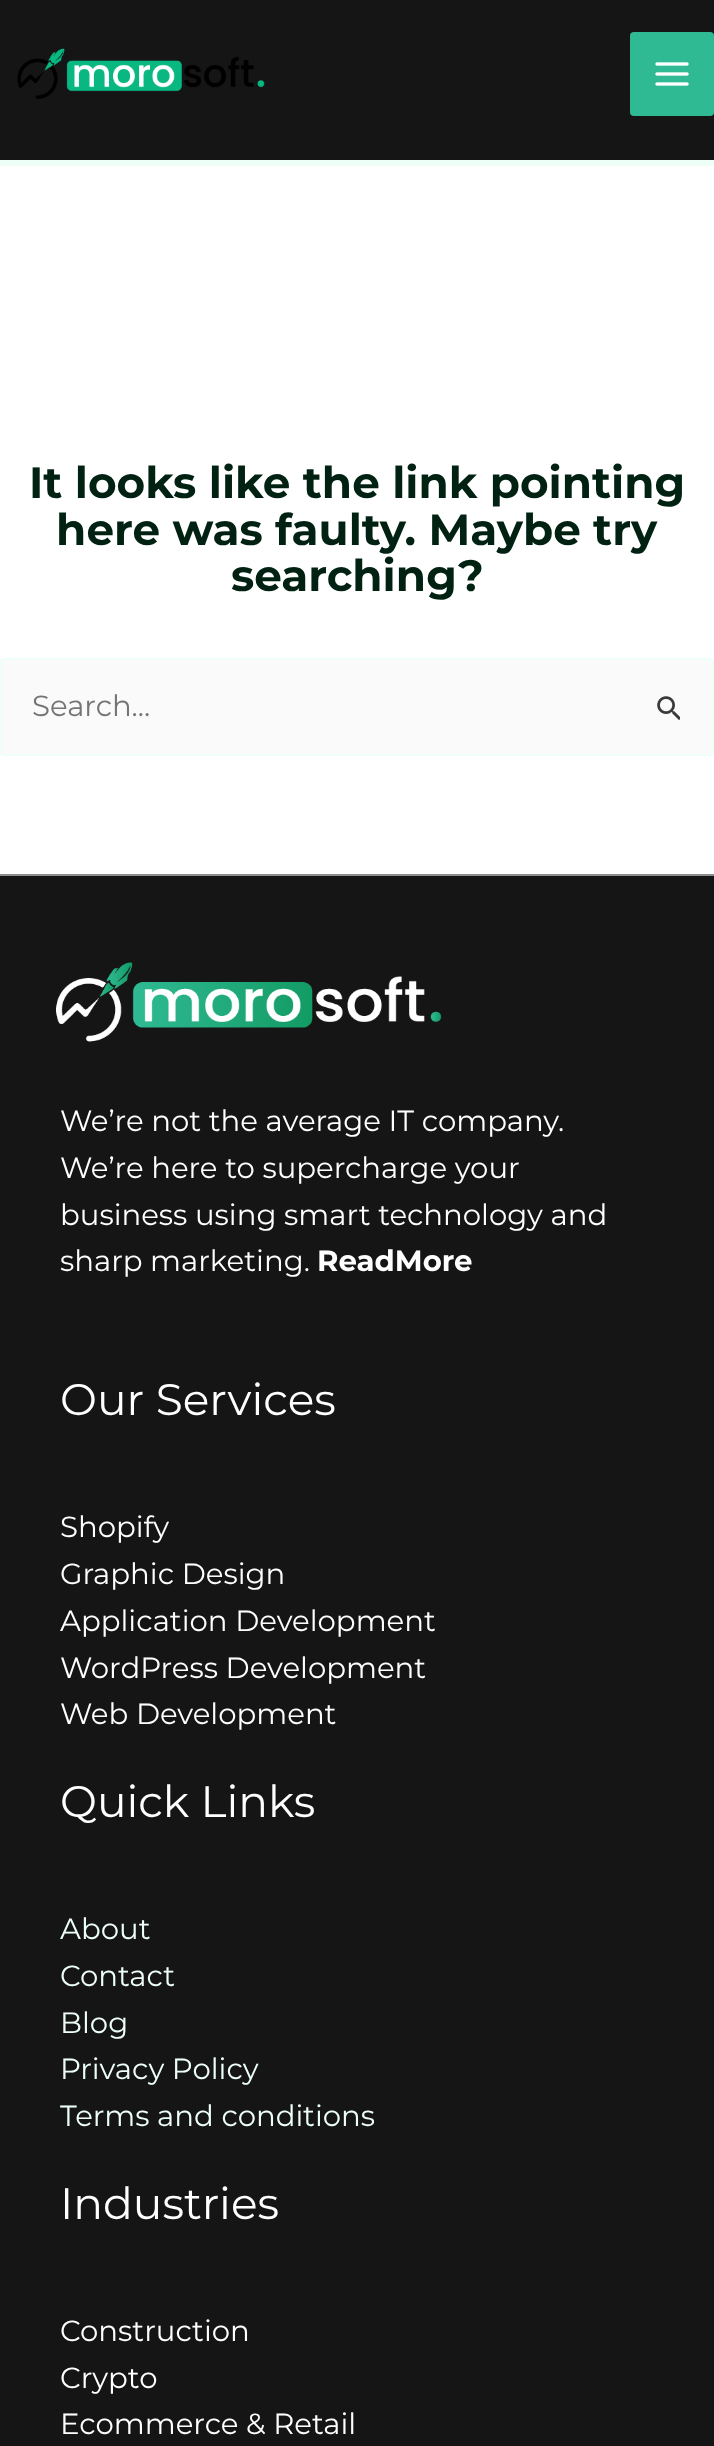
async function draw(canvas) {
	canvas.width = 714;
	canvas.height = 2446;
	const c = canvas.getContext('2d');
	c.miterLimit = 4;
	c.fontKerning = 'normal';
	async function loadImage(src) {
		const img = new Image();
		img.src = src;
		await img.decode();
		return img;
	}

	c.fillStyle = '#fff';
	c.fillRect(0, 0, 714, 2446);
	c.fillStyle = '#151515';
	c.fillRect(0, 0, 714, 160);
	c.fillStyle = '#eefff7';
	c.fillRect(0, 160, 714, 6);
	c.drawImage(await loadImage('img1.png'), 17, 48, 248, 51);
	c.fillStyle = '#30ba93';
	c.beginPath();
	c.roundRect(630, 32, 84, 84, 4);
	c.fill();
	c.drawImage(await loadImage('img2.png'), 655, 62, 34, 24);
	c.font = 'bold 43.75px Montserrat';
	c.fillStyle = '#012113';
	for (const [text, x, y] of [
		['It looks like the link pointing', 29, 498],
		['here was faulty. Maybe try', 56, 545],
		['searching?', 231, 591],
	]) {
		c.fillText(text, x, y);
	}
	c.fillStyle = '#fafafa';
	c.beginPath();
	c.roundRect(1, 659, 712, 96, 3);
	c.fill();
	c.strokeStyle = '#eefff7';
	c.lineWidth = 2;
	c.stroke();
	c.font = '29.2px Montserrat';
	c.fillStyle = '#757575';
	c.fillText('Search...', 32, 716);
	c.drawImage(await loadImage('img3.png'), 657, 696, 23, 24);
	c.fillStyle = '#151515';
	c.fillRect(0, 876, 714, 1570);
	c.fillStyle = '#8c8c8c';
	c.fillRect(0, 874, 714, 2);
	c.drawImage(await loadImage('img4.png'), 56, 962, 386, 80);
	c.fillStyle = '#fff';
	for (const [text, x, y] of [
		['We’re not the average IT company.', 60, 1131],
		['We’re here to supercharge your', 60, 1178],
		['business using smart technology and', 60, 1225],
		['sharp marketing.', 60, 1271],
	]) {
		c.fillText(text, x, y);
	}
	c.font = 'bold 29.2px Montserrat';
	c.fillText('ReadMore', 317, 1271);
	c.font = '44px Montserrat';
	c.fillText('Our Services', 60, 1415);
	c.font = '29.2px Montserrat';
	for (const [text, x, y] of [
		['Shopify', 60, 1537],
		['Graphic Design', 60, 1584],
		['Application Development', 60, 1631],
		['WordPress Development', 60, 1678],
		['Web Development', 60, 1724],
	]) {
		c.fillText(text, x, y);
	}
	c.font = '44px Montserrat';
	c.fillText('Quick Links', 60, 1817);
	c.font = '29.2px Montserrat';
	c.fillStyle = '#eefff7';
	for (const [text, x, y] of [
		['About', 60, 1939],
		['Contact', 60, 1986],
		['Blog', 60, 2033],
		['Privacy Policy', 60, 2079],
		['Terms and conditions', 60, 2126],
	]) {
		c.fillText(text, x, y);
	}
	c.font = '44px Montserrat';
	c.fillStyle = '#fff';
	c.fillText('Industries', 60, 2219);
	c.font = '29.2px Montserrat';
	for (const [text, x, y] of [
		['Construction', 60, 2341],
		['Crypto', 60, 2388],
		['Ecommerce & Retail', 60, 2434],
	]) {
		c.fillText(text, x, y);
	}
}

draw(document.querySelector('canvas'));
